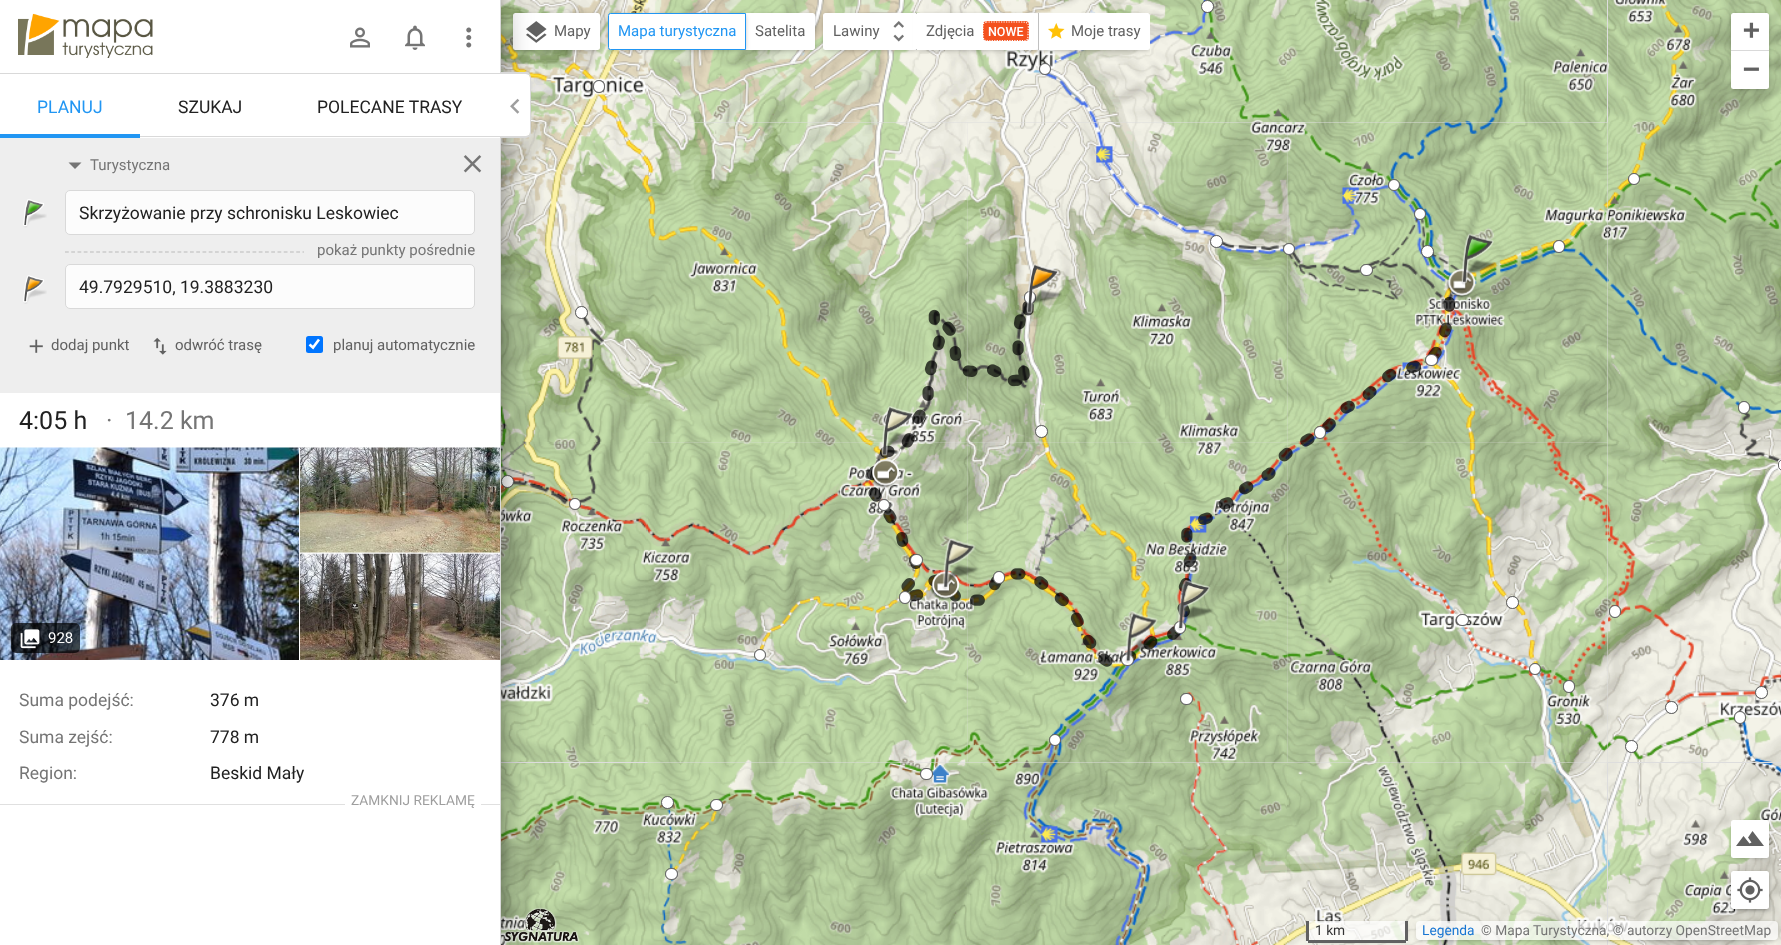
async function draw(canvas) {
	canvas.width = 1781;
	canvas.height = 945;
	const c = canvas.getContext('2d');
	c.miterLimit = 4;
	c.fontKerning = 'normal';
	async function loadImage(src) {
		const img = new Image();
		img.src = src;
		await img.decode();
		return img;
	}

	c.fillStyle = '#ddd';
	c.fillRect(0, 0, 1781, 945);
	c.drawImage(await loadImage('img31.png'), 967, 122, 321, 321);
	c.drawImage(await loadImage('img36.png'), 967, 442, 321, 321);
	c.drawImage(await loadImage('img30.png'), 648, 122, 320, 321);
	c.drawImage(await loadImage('img35.png'), 647, 442, 321, 321);
	c.drawImage(await loadImage('img34.png'), 501, 442, 147, 320);
	c.fillStyle = '#00000080';
	c.filter = 'blur(0.5px)';
	c.beginPath();
	c.roundRect(501, 475, 13, 13, 6.5);
	c.fill();
	c.filter = 'none';
	c.fillStyle = '#fff';
	c.beginPath();
	c.arc(507.5, 481.5, 6, 0, 2 * Math.PI);
	c.fill();
	c.strokeStyle = '#666';
	c.stroke();
	c.drawImage(await loadImage('img24.png'), 501, 0, 147, 122);
	c.drawImage(await loadImage('img29.png'), 501, 122, 147, 320);
	c.drawImage(await loadImage('img39.png'), 501, 763, 147, 182);
	c.fillStyle = '#0000004d';
	c.filter = 'blur(2.5px)';
	c.beginPath();
	c.roundRect(514, 15, 85, 35, 1);
	c.fill();
	c.filter = 'none';
	c.fillStyle = '#fff';
	c.beginPath();
	c.roundRect(513, 13, 87, 37, 2.5);
	c.fill();
	c.drawImage(await loadImage('img45.png'), 526, 21, 21, 22);
	c.drawImage(await loadImage('img48.png'), 503, 907, 77, 36);
	c.fillStyle = '#000';
	c.filter = 'blur(19px)';
	c.beginPath();
	c.rect(-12, 0, 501, 945);
	c.fill();
	c.filter = 'none';
	for (const [x, y, w, h, color] of [
		[0, 0, 500, 945, '#fff'],
		[500, 0, 1, 945, '#d9d9d9'],
		[0, 73, 500, 1, '#d9d9d9'],
	]) {
		c.fillStyle = color;
		c.fillRect(x, y, w, h);
	}
	c.drawImage(await loadImage('img1.png'), 18, 13, 135, 45);
	c.drawImage(await loadImage('img2.png'), 350, 27, 20, 21);
	c.drawImage(await loadImage('img3.png'), 405, 25, 20, 25);
	c.drawImage(await loadImage('img4.png'), 466, 27, 6, 21);
	c.fillRect(140, 136, 360, 1);
	c.fillStyle = '#2196f3';
	c.fillRect(0, 134, 140, 4);
	c.font = '17.5px Roboto';
	c.fillText('PLANUJ', 37, 113);
	c.fillStyle = '#212121';
	c.fillText('SZUKAJ', 178, 113);
	c.fillText('POLECANE TRASY', 317, 113);
	c.fillStyle = '#eee';
	c.fillRect(0, 138, 500, 255);
	c.fillStyle = '#757575';
	c.beginPath();
	c.moveTo(68.5, 162.5);
	c.lineTo(81.5, 162.5);
	c.lineTo(75, 169);
	c.closePath();
	c.fill();
	c.font = '15px Roboto';
	c.fillText('Turystyczna', 90, 170);
	c.drawImage(await loadImage('img5.png'), 463, 155, 19, 18);
	c.drawImage(await loadImage('img6.png'), 23, 199, 24, 29);
	c.fillStyle = '#fcfcfc';
	c.beginPath();
	c.roundRect(65.5, 190.5, 409, 44, 4.5);
	c.fill();
	c.strokeStyle = '#d9d9d9';
	c.stroke();
	c.font = '17.5px Roboto';
	c.fillStyle = '#212121';
	c.fillText('Skrzyżowanie przy schronisku Leskowiec', 79, 219);
	c.beginPath();
	c.moveTo(65, 252);
	c.lineTo(475, 252);
	c.strokeStyle = '#bababa';
	c.lineWidth = 1.2;
	c.setLineDash([3.75, 2.5]);
	c.stroke();
	c.fillStyle = '#eee';
	c.fillRect(304, 251, 171, 2);
	c.font = '15px Roboto';
	c.fillStyle = '#757575';
	c.fillText('pokaż punkty pośrednie', 317, 255);
	c.fillStyle = '#fcfcfc';
	c.beginPath();
	c.roundRect(65.5, 264.5, 409, 44, 4.5);
	c.fill();
	c.strokeStyle = '#d9d9d9';
	c.lineWidth = 1;
	c.setLineDash([]);
	c.stroke();
	c.font = '17.5px Roboto';
	c.fillStyle = '#212121';
	c.fillText('49.7929510, 19.3883230', 79, 293);
	c.drawImage(await loadImage('img7.png'), 23, 275, 24, 29);
	c.drawImage(await loadImage('img8.png'), 29, 339, 14, 14);
	c.font = '15px Roboto';
	c.fillStyle = '#616161';
	c.fillText('dodaj punkt', 51, 350);
	c.drawImage(await loadImage('img9.png'), 153, 337, 14, 18);
	c.fillText('odwróć trasę', 175, 350);
	c.fillStyle = '#0075ff';
	c.beginPath();
	c.roundRect(306, 336, 17, 17, 2.5);
	c.fill();
	c.beginPath();
	c.moveTo(309.5, 344.5);
	c.lineTo(313, 347.5);
	c.lineTo(319, 339.5);
	c.strokeStyle = '#fff';
	c.lineWidth = 2.6;
	c.stroke();
	c.fillStyle = '#616161';
	c.fillText('planuj automatycznie', 333, 350);
	c.font = '25px Roboto';
	c.fillStyle = '#212121';
	c.fillText('4:05 h', 19, 429);
	c.fillStyle = '#757575';
	c.fillText('·', 106, 429);
	c.fillText('14.2 km', 125, 429);
	c.drawImage(await loadImage('img10.png'), 0, 447, 300, 213);
	c.fillStyle = '#fff';
	c.fillRect(299, 448, 1, 212);
	c.drawImage(await loadImage('img11.png'), 300, 447, 200, 106);
	c.fillStyle = '#000000b3';
	c.beginPath();
	c.roundRect(11, 623, 69, 30, 5);
	c.fill();
	c.drawImage(await loadImage('img12.png'), 20, 629, 20, 20);
	c.font = '15px Roboto';
	c.fillStyle = '#fff';
	c.fillText('928', 48, 643);
	c.drawImage(await loadImage('img13.png'), 300, 553, 200, 107);
	c.font = '17.5px Roboto';
	c.fillStyle = '#757575';
	c.fillText('Suma podejść:', 19, 706);
	c.fillStyle = '#212121';
	c.fillText('376 m', 210, 706);
	c.fillStyle = '#757575';
	c.fillText('Suma zejść:', 19, 743);
	c.fillStyle = '#212121';
	c.fillText('778 m', 210, 743);
	c.fillStyle = '#757575';
	c.fillText('Region:', 19, 779);
	c.fillStyle = '#212121';
	c.fillText('Beskid Mały', 210, 779);
	c.fillStyle = '#fff';
	c.beginPath();
	c.roundRect(500, 74, 30, 62, [0, 4, 4, 0]);
	c.fill();
	c.fillStyle = '#d9d9d9';
	c.beginPath();
	c.moveTo(500, 72);
	c.lineTo(526, 72);
	c.bezierCurveTo(529, 72, 531, 75, 531, 78);
	c.lineTo(531, 132);
	c.bezierCurveTo(531, 135, 529, 138, 526, 138);
	c.lineTo(500, 138);
	c.closePath();
	c.moveTo(500, 74);
	c.lineTo(526, 74);
	c.bezierCurveTo(528, 74, 530, 75, 530, 78);
	c.lineTo(530, 132);
	c.bezierCurveTo(530, 135, 528, 136, 526, 136);
	c.lineTo(500, 136);
	c.closePath();
	c.fill('evenodd');
	c.drawImage(await loadImage('img14.png'), 510, 98, 10, 16);
	c.fillStyle = '#e0e0e0';
	c.fillRect(0, 804, 500, 1);
	c.fillStyle = '#fff';
	c.fillRect(345, 804, 136, 1);
	c.font = '13.75px Roboto';
	c.fillStyle = '#9e9e9e';
	c.fillText('ZAMKNIJ REKLAMĘ', 351, 805);
	c.drawImage(await loadImage('img26.png'), 967, 0, 320, 122);
	c.fillStyle = '#00000080';
	c.filter = 'blur(0.5px)';
	c.beginPath();
	c.roundRect(1201, 0, 13, 13, 6.5);
	c.fill();
	c.filter = 'none';
	c.fillStyle = '#fff';
	c.beginPath();
	c.arc(1207.5, 6.5, 6, 0, 2 * Math.PI);
	c.fill();
	c.strokeStyle = '#666';
	c.lineWidth = 1;
	c.stroke();
	c.fillStyle = '#00000080';
	c.filter = 'blur(0.5px)';
	c.beginPath();
	c.roundRect(1039, 63, 12, 12, 6);
	c.fill();
	c.filter = 'none';
	c.fillStyle = '#fff';
	c.beginPath();
	c.arc(1045, 69, 5.5, 0, 2 * Math.PI);
	c.fill();
	c.stroke();
	c.fillStyle = '#00000080';
	c.filter = 'blur(0.5px)';
	c.beginPath();
	c.roundRect(593, 80, 12, 13, 6);
	c.fill();
	c.filter = 'none';
	c.fillStyle = '#fff';
	c.beginPath();
	c.roundRect(593.5, 80.5, 11, 12, 5.5);
	c.fill();
	c.stroke();
	c.drawImage(await loadImage('img32.png'), 1287, 122, 321, 321);
	c.fillStyle = '#00000080';
	c.filter = 'blur(0.5px)';
	c.beginPath();
	c.roundRect(1388, 179, 12, 12, 6);
	c.fill();
	c.filter = 'none';
	c.fillStyle = '#fff';
	c.beginPath();
	c.arc(1394, 185, 5.5, 0, 2 * Math.PI);
	c.fill();
	c.stroke();
	c.drawImage(await loadImage('img33.png'), 1608, 122, 173, 320);
	c.fillStyle = '#00000080';
	c.filter = 'blur(0.5px)';
	c.beginPath();
	c.roundRect(1628, 173, 12, 12, 6);
	c.fill();
	c.filter = 'none';
	c.fillStyle = '#fff';
	c.beginPath();
	c.arc(1634, 179, 5.5, 0, 2 * Math.PI);
	c.fill();
	c.stroke();
	c.fillStyle = '#00000080';
	c.filter = 'blur(0.5px)';
	c.beginPath();
	c.roundRect(1414, 208, 12, 12, 6);
	c.fill();
	c.filter = 'none';
	c.fillStyle = '#fff';
	c.beginPath();
	c.arc(1420, 214, 5.5, 0, 2 * Math.PI);
	c.fill();
	c.stroke();
	c.fillStyle = '#00000080';
	c.filter = 'blur(0.5px)';
	c.beginPath();
	c.roundRect(1210, 235, 13, 13, 6.5);
	c.fill();
	c.filter = 'none';
	c.fillStyle = '#fff';
	c.beginPath();
	c.arc(1216.5, 241.5, 6, 0, 2 * Math.PI);
	c.fill();
	c.stroke();
	c.fillStyle = '#00000080';
	c.filter = 'blur(0.5px)';
	c.beginPath();
	c.roundRect(1283, 243, 12, 12, 6);
	c.fill();
	c.filter = 'none';
	c.fillStyle = '#fff';
	c.beginPath();
	c.arc(1289, 249, 5.5, 0, 2 * Math.PI);
	c.fill();
	c.stroke();
	c.fillStyle = '#00000080';
	c.filter = 'blur(0.5px)';
	c.beginPath();
	c.roundRect(1421, 245, 13, 13, 6.5);
	c.fill();
	c.filter = 'none';
	c.fillStyle = '#fff';
	c.beginPath();
	c.arc(1427.5, 251.5, 6, 0, 2 * Math.PI);
	c.fill();
	c.stroke();
	c.drawImage(await loadImage('img37.png'), 1287, 442, 321, 321);
	c.drawImage(await loadImage('img44.png'), 866, 296, 589, 371);
	c.drawImage(await loadImage('img17.png'), 1446, 268, 30, 30);
	c.drawImage(await loadImage('img15.png'), 1461, 233, 36, 52);
	c.fillStyle = '#00000080';
	c.filter = 'blur(0.5px)';
	c.beginPath();
	c.roundRect(1553, 240, 12, 13, 6);
	c.fill();
	c.filter = 'none';
	c.fillStyle = '#fff';
	c.beginPath();
	c.roundRect(1553.5, 240.5, 11, 12, 5.5);
	c.fill();
	c.stroke();
	c.fillStyle = '#00000080';
	c.filter = 'blur(0.5px)';
	c.beginPath();
	c.roundRect(1024, 291, 12, 13, 6);
	c.fill();
	c.filter = 'none';
	c.fillStyle = '#fff';
	c.beginPath();
	c.roundRect(1024.5, 291.5, 11, 12, 5.5);
	c.fill();
	c.stroke();
	c.drawImage(await loadImage('img16.png'), 1026, 263, 36, 51);
	c.fillStyle = '#00000080';
	c.filter = 'blur(0.5px)';
	c.beginPath();
	c.roundRect(1360, 264, 13, 12, 6);
	c.fill();
	c.filter = 'none';
	c.fillStyle = '#fff';
	c.beginPath();
	c.roundRect(1360.5, 264.5, 12, 11, 5.5);
	c.fill();
	c.stroke();
	c.fillStyle = '#00000080';
	c.filter = 'blur(0.5px)';
	c.beginPath();
	c.roundRect(575, 306, 13, 13, 6.5);
	c.fill();
	c.filter = 'none';
	c.fillStyle = '#fff';
	c.beginPath();
	c.arc(581.5, 312.5, 6, 0, 2 * Math.PI);
	c.fill();
	c.stroke();
	c.fillStyle = '#00000080';
	c.filter = 'blur(0.5px)';
	c.beginPath();
	c.roundRect(1425, 354, 13, 12, 6);
	c.fill();
	c.filter = 'none';
	c.fillStyle = '#fff';
	c.beginPath();
	c.roundRect(1425.5, 354.5, 12, 11, 5.5);
	c.fill();
	c.stroke();
	c.drawImage(await loadImage('img18.png'), 881, 406, 36, 51);
	c.fillStyle = '#00000080';
	c.filter = 'blur(0.5px)';
	c.beginPath();
	c.roundRect(1035, 425, 13, 13, 6.5);
	c.fill();
	c.filter = 'none';
	c.fillStyle = '#fff';
	c.beginPath();
	c.arc(1041.5, 431.5, 6, 0, 2 * Math.PI);
	c.fill();
	c.stroke();
	c.fillStyle = '#00000080';
	c.filter = 'blur(0.5px)';
	c.beginPath();
	c.roundRect(1314, 426, 12, 13, 6);
	c.fill();
	c.filter = 'none';
	c.fillStyle = '#fff';
	c.beginPath();
	c.roundRect(1314.5, 426.5, 11, 12, 5.5);
	c.fill();
	c.stroke();
	c.fillStyle = '#00000080';
	c.filter = 'blur(0.5px)';
	c.beginPath();
	c.roundRect(1738, 401, 12, 13, 6);
	c.fill();
	c.filter = 'none';
	c.fillStyle = '#fff';
	c.beginPath();
	c.roundRect(1738.5, 401.5, 11, 12, 5.5);
	c.fill();
	c.stroke();
	c.drawImage(await loadImage('img19.png'), 870, 458, 30, 30);
	c.drawImage(await loadImage('img38.png'), 1608, 442, 173, 320);
	c.fillStyle = '#00000080';
	c.filter = 'blur(0.5px)';
	c.beginPath();
	c.roundRect(1778, 459, 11, 12, 6);
	c.fill();
	c.filter = 'none';
	c.fillStyle = '#fff';
	c.beginPath();
	c.roundRect(1778, 459, 3, 12, [6, 0, 0, 6]);
	c.fill();
	c.beginPath();
	c.roundRect(1778.5, 459.5, 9, 11, 5.5);
	c.stroke();
	c.fillStyle = '#00000080';
	c.filter = 'blur(0.5px)';
	c.beginPath();
	c.roundRect(569, 498, 12, 12, 6);
	c.fill();
	c.filter = 'none';
	c.fillStyle = '#fff';
	c.beginPath();
	c.arc(575, 504, 5.5, 0, 2 * Math.PI);
	c.fill();
	c.stroke();
	c.fillStyle = '#00000080';
	c.filter = 'blur(0.5px)';
	c.beginPath();
	c.roundRect(878, 499, 12, 12, 6);
	c.fill();
	c.filter = 'none';
	c.fillStyle = '#fff';
	c.beginPath();
	c.arc(884, 505, 5.5, 0, 2 * Math.PI);
	c.fill();
	c.stroke();
	c.fillStyle = '#00000080';
	c.filter = 'blur(0.5px)';
	c.beginPath();
	c.roundRect(910, 554, 13, 12, 6);
	c.fill();
	c.filter = 'none';
	c.fillStyle = '#fff';
	c.beginPath();
	c.roundRect(910.5, 554.5, 12, 11, 5.5);
	c.fill();
	c.stroke();
	c.drawImage(await loadImage('img21.png'), 930, 571, 30, 30);
	c.drawImage(await loadImage('img20.png'), 942, 538, 37, 52);
	c.fillStyle = '#00000080';
	c.filter = 'blur(0.5px)';
	c.beginPath();
	c.roundRect(899, 591, 12, 13, 6);
	c.fill();
	c.filter = 'none';
	c.fillStyle = '#fff';
	c.beginPath();
	c.roundRect(899.5, 591.5, 11, 12, 5.5);
	c.fill();
	c.stroke();
	c.fillStyle = '#00000080';
	c.filter = 'blur(0.5px)';
	c.beginPath();
	c.roundRect(993, 571, 12, 13, 6);
	c.fill();
	c.filter = 'none';
	c.fillStyle = '#fff';
	c.beginPath();
	c.roundRect(993.5, 571.5, 11, 12, 5.5);
	c.fill();
	c.stroke();
	c.fillStyle = '#00000080';
	c.filter = 'blur(0.5px)';
	c.beginPath();
	c.roundRect(1121, 654, 13, 12, 6);
	c.fill();
	c.filter = 'none';
	c.fillStyle = '#fff';
	c.beginPath();
	c.roundRect(1121.5, 654.5, 12, 11, 5.5);
	c.fill();
	c.stroke();
	c.drawImage(await loadImage('img22.png'), 1124, 612, 37, 52);
	c.fillStyle = '#00000080';
	c.filter = 'blur(0.5px)';
	c.beginPath();
	c.roundRect(1174, 621, 12, 13, 6);
	c.fill();
	c.filter = 'none';
	c.fillStyle = '#fff';
	c.beginPath();
	c.roundRect(1174.5, 621.5, 11, 12, 5.5);
	c.fill();
	c.stroke();
	c.drawImage(await loadImage('img23.png'), 1177, 580, 37, 51);
	c.fillStyle = '#00000080';
	c.filter = 'blur(0.5px)';
	c.beginPath();
	c.roundRect(1456, 614, 13, 12, 6);
	c.fill();
	c.filter = 'none';
	c.fillStyle = '#fff';
	c.beginPath();
	c.roundRect(1456.5, 614.5, 12, 11, 5.5);
	c.fill();
	c.stroke();
	c.fillStyle = '#00000080';
	c.filter = 'blur(0.5px)';
	c.beginPath();
	c.roundRect(1506, 596, 13, 13, 6.5);
	c.fill();
	c.filter = 'none';
	c.fillStyle = '#fff';
	c.beginPath();
	c.arc(1512.5, 602.5, 6, 0, 2 * Math.PI);
	c.fill();
	c.stroke();
	c.fillStyle = '#00000080';
	c.filter = 'blur(0.5px)';
	c.beginPath();
	c.roundRect(1609, 605, 12, 13, 6);
	c.fill();
	c.filter = 'none';
	c.fillStyle = '#fff';
	c.beginPath();
	c.roundRect(1609.5, 605.5, 11, 12, 5.5);
	c.fill();
	c.stroke();
	c.fillStyle = '#00000080';
	c.filter = 'blur(0.5px)';
	c.beginPath();
	c.roundRect(754, 649, 12, 12, 6);
	c.fill();
	c.filter = 'none';
	c.fillStyle = '#fff';
	c.beginPath();
	c.arc(760, 655, 5.5, 0, 2 * Math.PI);
	c.fill();
	c.stroke();
	c.fillStyle = '#00000080';
	c.filter = 'blur(0.5px)';
	c.beginPath();
	c.roundRect(1529, 663, 12, 12, 6);
	c.fill();
	c.filter = 'none';
	c.fillStyle = '#fff';
	c.beginPath();
	c.arc(1535, 669, 5.5, 0, 2 * Math.PI);
	c.fill();
	c.stroke();
	c.fillStyle = '#00000080';
	c.filter = 'blur(0.5px)';
	c.beginPath();
	c.roundRect(1180, 693, 13, 12, 6);
	c.fill();
	c.filter = 'none';
	c.fillStyle = '#fff';
	c.beginPath();
	c.roundRect(1180.5, 693.5, 12, 11, 5.5);
	c.fill();
	c.stroke();
	c.fillStyle = '#00000080';
	c.filter = 'blur(0.5px)';
	c.beginPath();
	c.roundRect(1563, 680, 12, 13, 6);
	c.fill();
	c.filter = 'none';
	c.fillStyle = '#fff';
	c.beginPath();
	c.roundRect(1563.5, 680.5, 11, 12, 5.5);
	c.fill();
	c.stroke();
	c.fillStyle = '#00000080';
	c.filter = 'blur(0.5px)';
	c.beginPath();
	c.roundRect(1665, 701, 13, 13, 6.5);
	c.fill();
	c.filter = 'none';
	c.fillStyle = '#fff';
	c.beginPath();
	c.arc(1671.5, 707.5, 6, 0, 2 * Math.PI);
	c.fill();
	c.stroke();
	c.fillStyle = '#00000080';
	c.filter = 'blur(0.5px)';
	c.beginPath();
	c.roundRect(1734, 711, 12, 13, 6);
	c.fill();
	c.filter = 'none';
	c.fillStyle = '#fff';
	c.beginPath();
	c.roundRect(1734.5, 711.5, 11, 12, 5.5);
	c.fill();
	c.stroke();
	c.fillStyle = '#00000080';
	c.filter = 'blur(0.5px)';
	c.beginPath();
	c.roundRect(1755, 686, 13, 13, 6.5);
	c.fill();
	c.filter = 'none';
	c.fillStyle = '#fff';
	c.beginPath();
	c.arc(1761.5, 692.5, 6, 0, 2 * Math.PI);
	c.fill();
	c.stroke();
	c.fillStyle = '#00000080';
	c.filter = 'blur(0.5px)';
	c.beginPath();
	c.roundRect(1049, 734, 12, 12, 6);
	c.fill();
	c.filter = 'none';
	c.fillStyle = '#fff';
	c.beginPath();
	c.arc(1055, 740, 5.5, 0, 2 * Math.PI);
	c.fill();
	c.stroke();
	c.fillStyle = '#00000080';
	c.filter = 'blur(0.5px)';
	c.beginPath();
	c.roundRect(1625, 740, 13, 13, 6.5);
	c.fill();
	c.filter = 'none';
	c.fillStyle = '#fff';
	c.beginPath();
	c.arc(1631.5, 746.5, 6, 0, 2 * Math.PI);
	c.fill();
	c.stroke();
	c.drawImage(await loadImage('img40.png'), 648, 763, 319, 182);
	c.fillStyle = '#00000080';
	c.filter = 'blur(0.5px)';
	c.beginPath();
	c.roundRect(920, 768, 13, 12, 6);
	c.fill();
	c.filter = 'none';
	c.fillStyle = '#fff';
	c.beginPath();
	c.roundRect(920.5, 768.5, 12, 11, 5.5);
	c.fill();
	c.stroke();
	c.fillStyle = '#00000080';
	c.filter = 'blur(0.5px)';
	c.beginPath();
	c.roundRect(661, 796, 13, 13, 6.5);
	c.fill();
	c.filter = 'none';
	c.fillStyle = '#fff';
	c.beginPath();
	c.arc(667.5, 802.5, 6, 0, 2 * Math.PI);
	c.fill();
	c.stroke();
	c.fillStyle = '#00000080';
	c.filter = 'blur(0.5px)';
	c.beginPath();
	c.roundRect(710, 799, 13, 12, 6);
	c.fill();
	c.filter = 'none';
	c.fillStyle = '#fff';
	c.beginPath();
	c.roundRect(710.5, 799.5, 12, 11, 5.5);
	c.fill();
	c.stroke();
	c.fillStyle = '#00000080';
	c.filter = 'blur(0.5px)';
	c.beginPath();
	c.roundRect(665, 868, 13, 12, 6);
	c.fill();
	c.filter = 'none';
	c.fillStyle = '#fff';
	c.beginPath();
	c.roundRect(665.5, 868.5, 12, 11, 5.5);
	c.fill();
	c.stroke();
	c.drawImage(await loadImage('img25.png'), 648, 0, 319, 122);
	c.drawImage(await loadImage('img27.png'), 1287, 0, 320, 122);
	c.drawImage(await loadImage('img28.png'), 1608, 0, 173, 122);
	c.drawImage(await loadImage('img41.png'), 967, 763, 320, 182);
	c.drawImage(await loadImage('img42.png'), 1287, 763, 320, 182);
	c.drawImage(await loadImage('img43.png'), 1608, 763, 173, 182);
	c.font = '15px Roboto';
	c.fillStyle = '#616161';
	c.fillText('Mapy', 554, 36);
	c.fillStyle = '#0000004d';
	c.filter = 'blur(2.5px)';
	c.beginPath();
	c.roundRect(746, 15, 68, 35, 1);
	c.fill();
	c.filter = 'none';
	c.fillStyle = '#fff';
	c.beginPath();
	c.roundRect(745, 13, 70, 37, [0, 2.5, 2.5, 0]);
	c.fill();
	c.fillStyle = '#0000004d';
	c.filter = 'blur(2.5px)';
	c.beginPath();
	c.roundRect(609, 15, 136, 35, 1);
	c.fill();
	c.filter = 'none';
	c.fillStyle = '#fff';
	c.beginPath();
	c.roundRect(608.5, 13.5, 137, 36, [2, 0, 0, 2]);
	c.fill();
	c.strokeStyle = '#2196f3';
	c.stroke();
	c.fillStyle = '#2196f3';
	c.fillText('Mapa turystyczna', 618, 36);
	c.fillStyle = '#616161';
	c.fillText('Satelita', 755, 36);
	c.fillStyle = '#0000004d';
	c.filter = 'blur(2.5px)';
	c.beginPath();
	c.roundRect(824, 15, 92, 35, 1);
	c.fill();
	c.filter = 'none';
	c.fillStyle = '#fff';
	c.beginPath();
	c.roundRect(823, 13, 95, 37, [2.5, 0, 0, 2.5]);
	c.fill();
	c.fillStyle = '#0000004d';
	c.filter = 'blur(2.5px)';
	c.beginPath();
	c.rect(918, 15, 120, 35);
	c.fill();
	c.filter = 'none';
	c.fillStyle = '#c0c0c0';
	c.fillRect(916, 13, 1, 37);
	c.fillStyle = '#616161';
	c.fillText('Lawiny', 833, 36);
	c.drawImage(await loadImage('img46.png'), 893, 21, 11, 21);
	c.fillStyle = '#fff';
	c.fillRect(913, 14, 4, 35);
	c.fillRect(917, 13, 121, 37);
	c.fillStyle = '#616161';
	c.fillText('Zdjęcia', 926, 36);
	c.fillStyle = '#f4511e';
	c.beginPath();
	c.roundRect(983, 21, 46, 20, 4);
	c.fill();
	c.beginPath();
	c.moveTo(986, 22);
	c.lineTo(1018.5, 22);
	c.bezierCurveTo(1031, 22, 1028, 23, 1028, 35.5);
	c.bezierCurveTo(1028, 42, 1025, 40.5, 1018.5, 40.5);
	c.lineTo(999, 40.5);
	c.bezierCurveTo(984.5, 40.5, 983, 44, 983, 31);
	c.bezierCurveTo(983, 28.5, 982, 22, 986, 22);
	c.closePath();
	c.strokeStyle = '#fff';
	c.lineWidth = 1.2;
	c.setLineDash([1.25, 1.25]);
	c.stroke();
	c.font = '500 12.5px Roboto';
	c.fillStyle = '#fff';
	c.fillText('NOWE', 988, 36);
	c.save();
	c.beginPath();
	c.rect(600, 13, 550, 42);
	c.clip();
	c.fillStyle = '#0000004d';
	c.filter = 'blur(2.5px)';
	c.beginPath();
	c.roundRect(1039, 15, 110, 35, 1);
	c.fill();
	c.filter = 'none';
	c.restore();
	c.fillRect(1034, 14, 4, 35);
	c.beginPath();
	c.roundRect(1038, 13, 112, 37, [0, 2.5, 2.5, 0]);
	c.fill();
	c.fillStyle = '#c0c0c0';
	c.fillRect(1038, 13, 1, 37);
	c.drawImage(await loadImage('img47.png'), 1048, 23, 17, 16);
	c.font = '15px Roboto';
	c.fillStyle = '#616161';
	c.fillText('Moje trasy', 1071, 36);
	c.fillStyle = '#0000004d';
	c.filter = 'blur(2.5px)';
	c.beginPath();
	c.roundRect(1733, 15, 35, 74, 1);
	c.fill();
	c.filter = 'none';
	c.fillStyle = '#fff';
	c.beginPath();
	c.roundRect(1731, 13, 38, 38, [2.5, 2.5, 0, 0]);
	c.fill();
	c.fillStyle = '#d9d9d9';
	c.fillRect(1731, 50, 38, 1);
	c.font = 'bold 28px DejaVu Sans Mono';
	c.fillStyle = '#616161';
	c.fillText('+', 1743, 39);
	c.fillStyle = '#fff';
	c.beginPath();
	c.roundRect(1731, 51, 38, 38, [0, 0, 2.5, 2.5]);
	c.fill();
	c.fillStyle = '#616161';
	c.fillText('−', 1743, 78);
	c.fillStyle = '#0000004d';
	c.filter = 'blur(2.5px)';
	c.beginPath();
	c.roundRect(1733, 874, 35, 35, 1);
	c.fill();
	c.filter = 'none';
	c.filter = 'blur(2.5px)';
	c.beginPath();
	c.roundRect(1733, 874, 35, 35, 1);
	c.fill();
	c.filter = 'none';
	c.fillStyle = '#fff';
	c.beginPath();
	c.roundRect(1731, 871, 38, 38, 2.5);
	c.fill();
	c.drawImage(await loadImage('img49.png'), 1737, 877, 26, 26);
	c.save();
	c.beginPath();
	c.moveTo(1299, 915);
	c.lineTo(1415, 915);
	c.lineTo(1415, 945);
	c.lineTo(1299, 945);
	c.closePath();
	c.moveTo(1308.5, 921);
	c.lineTo(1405.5, 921);
	c.bezierCurveTo(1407, 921, 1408, 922, 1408, 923.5);
	c.lineTo(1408, 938.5);
	c.bezierCurveTo(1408, 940, 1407, 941, 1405.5, 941);
	c.lineTo(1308.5, 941);
	c.bezierCurveTo(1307, 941, 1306, 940, 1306, 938.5);
	c.lineTo(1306, 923.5);
	c.bezierCurveTo(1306, 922, 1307, 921, 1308.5, 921);
	c.closePath();
	c.clip('evenodd');
	c.fillStyle = '#0000004d';
	c.filter = 'blur(2.5px)';
	c.beginPath();
	c.roundRect(1308, 924, 98, 17, 1);
	c.fill();
	c.filter = 'none';
	c.restore();
	c.fillStyle = '#ffffffb3';
	c.beginPath();
	c.roundRect(1306, 921, 102, 22, [0, 0, 2.5, 2.5]);
	c.fill();
	for (const [x, y, w, h, color] of [
		[1405, 921, 3, 20, '#616161'],
		[1308, 940, 98, 3, '#616161'],
		[1306, 921, 3, 20, '#616161'],
	]) {
		c.fillStyle = color;
		c.fillRect(x, y, w, h);
	}
	c.font = '13.75px Roboto';
	c.fillStyle = '#333';
	c.fillText('1 km', 1315, 935);
	c.save();
	c.beginPath();
	c.moveTo(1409, 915);
	c.lineTo(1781, 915);
	c.lineTo(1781, 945);
	c.lineTo(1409, 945);
	c.closePath();
	c.moveTo(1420, 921);
	c.lineTo(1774, 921);
	c.bezierCurveTo(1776, 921, 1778, 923, 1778, 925);
	c.lineTo(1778, 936);
	c.bezierCurveTo(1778, 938, 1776, 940, 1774, 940);
	c.lineTo(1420, 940);
	c.bezierCurveTo(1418, 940, 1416, 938, 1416, 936);
	c.lineTo(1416, 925);
	c.bezierCurveTo(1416, 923, 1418, 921, 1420, 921);
	c.closePath();
	c.clip('evenodd');
	c.fillStyle = '#0000004d';
	c.filter = 'blur(2.5px)';
	c.beginPath();
	c.roundRect(1418, 924, 358, 16, 2.5);
	c.fill();
	c.filter = 'none';
	c.restore();
	c.fillStyle = '#ffffffb3';
	c.beginPath();
	c.roundRect(1416, 921, 362, 19, 4);
	c.fill();
	c.fillStyle = '#1976d2';
	c.fillText('Legenda', 1422, 935);
	c.fillStyle = '#757575';
	c.fillText('© Mapa Turystyczna, © autorzy OpenStreetMap', 1481, 935);
	c.fillStyle = '#0000004d';
	c.filter = 'blur(2.5px)';
	c.beginPath();
	c.roundRect(1733, 823, 35, 35, 1);
	c.fill();
	c.filter = 'none';
	c.fillStyle = '#fff';
	c.beginPath();
	c.roundRect(1731, 820, 38, 38, 2.5);
	c.fill();
	c.fillStyle = '#616161';
	c.beginPath();
	c.moveTo(1752.5, 831);
	c.lineTo(1764, 846);
	c.lineTo(1736, 846);
	c.lineTo(1743.5, 836);
	c.lineTo(1749.5, 843.5);
	c.lineTo(1751.5, 842.5);
	c.lineTo(1748, 837.5);
	c.closePath();
	c.fill();
}

draw(document.querySelector('canvas'));
